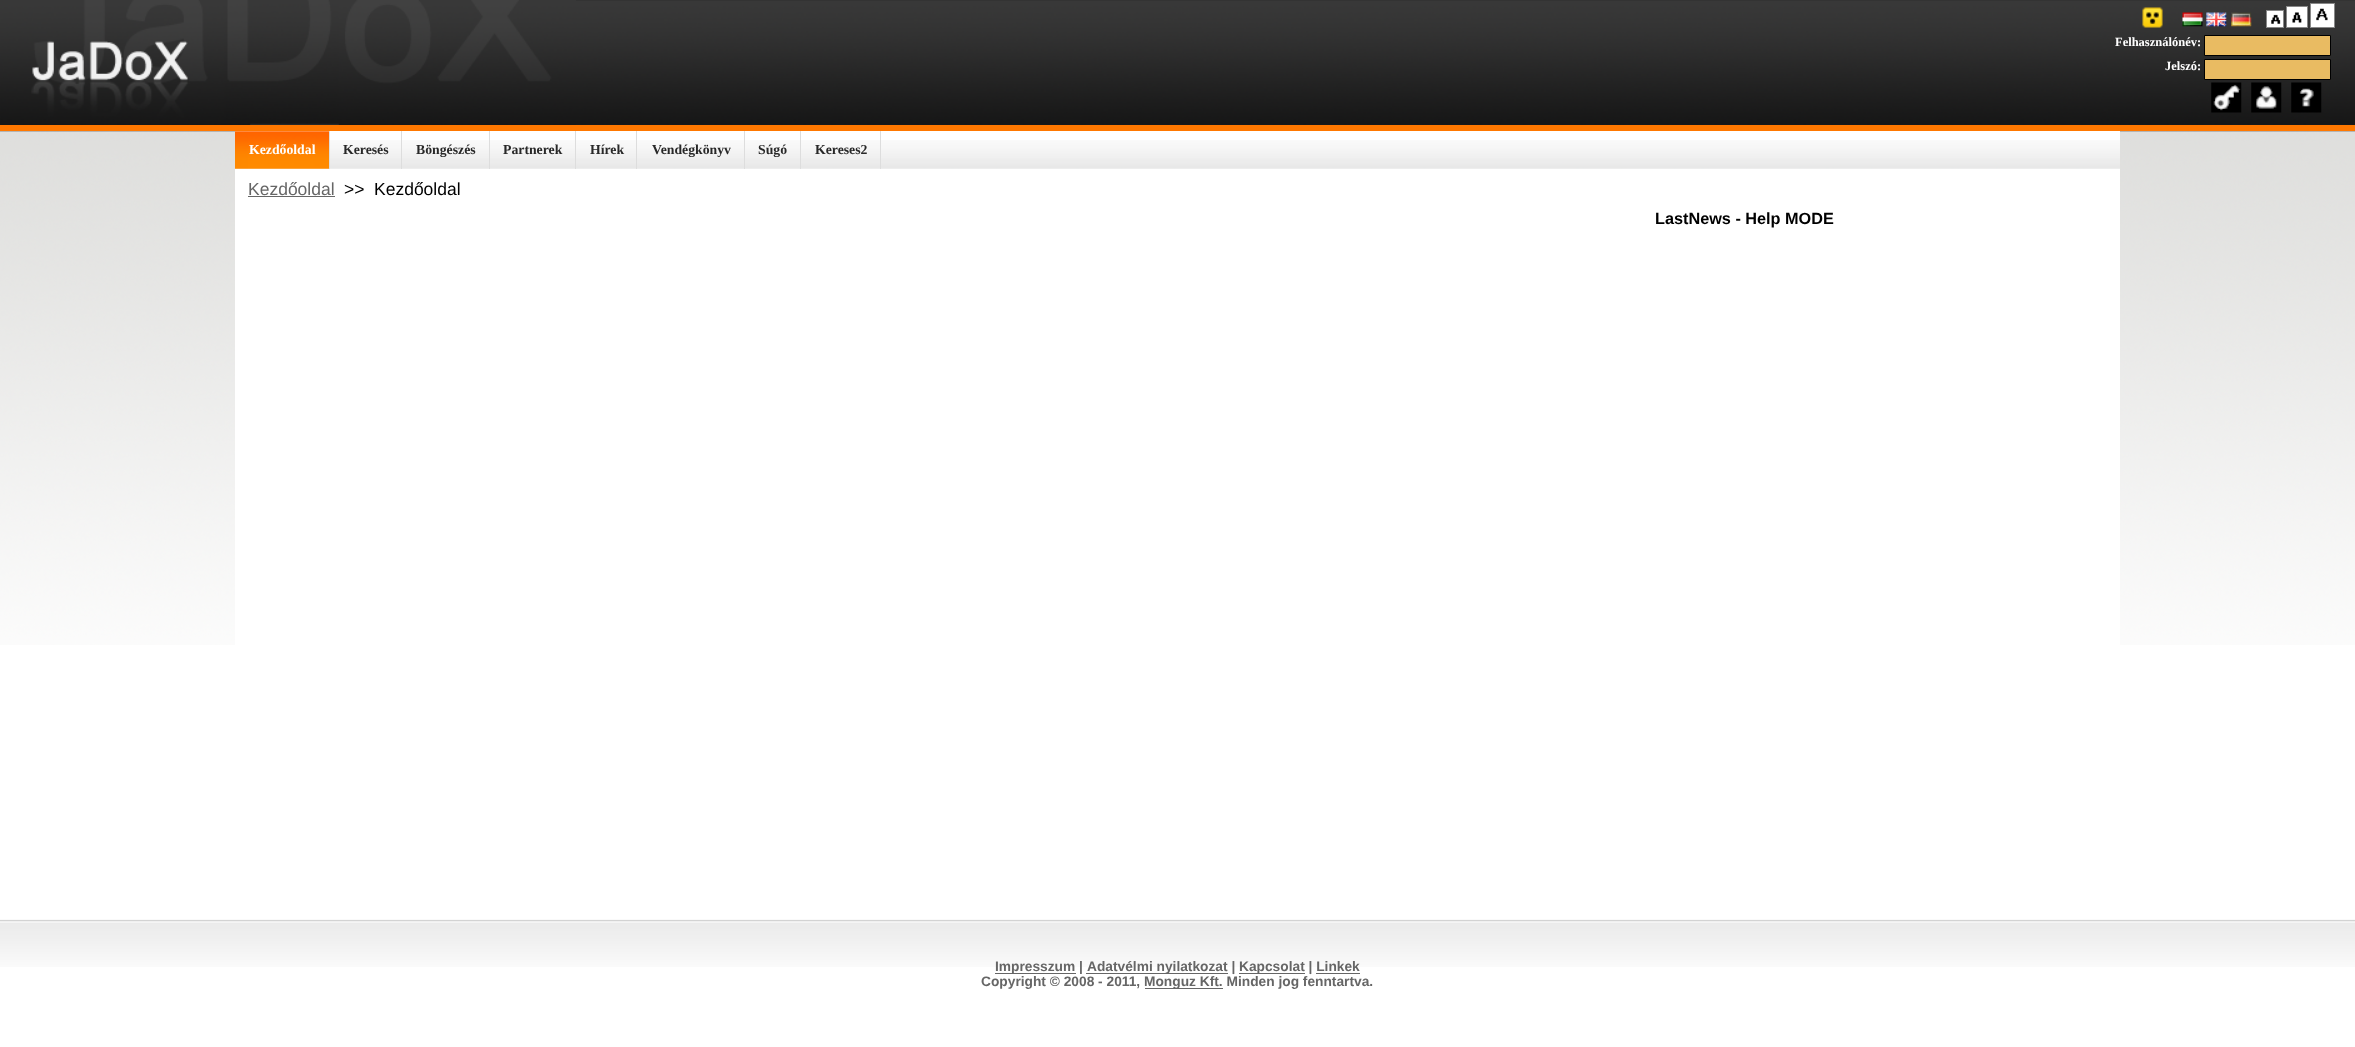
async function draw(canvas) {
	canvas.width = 2355;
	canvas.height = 1047;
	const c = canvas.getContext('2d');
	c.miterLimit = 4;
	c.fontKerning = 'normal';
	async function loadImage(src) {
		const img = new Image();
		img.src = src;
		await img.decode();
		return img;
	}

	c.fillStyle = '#fff';
	c.fillRect(0, 0, 2355, 1047);
	c.drawImage(await loadImage('img1.png'), 0, 131, 2355, 514);
	c.drawImage(await loadImage('img2.png'), 0, 0, 2355, 132);
	c.fillStyle = '#ff7800';
	c.fillRect(0, 125, 2355, 6);
	c.drawImage(await loadImage('img3.png'), 0, 0, 576, 125);
	c.drawImage(await loadImage('img4.png'), 2142, 7, 21, 21);
	c.fillStyle = '#fff';
	c.fillRect(235, 131, 1885, 514);
	c.font = '17.5px Liberation Sans';
	c.fillStyle = '#666';
	c.fillText('Kezdőoldal', 248, 195);
	c.fillRect(248, 196, 87, 1);
	c.fillStyle = '#000';
	c.fillText('>>', 344, 195);
	c.fillText('Kezdőoldal', 374, 195);
	c.drawImage(await loadImage('img5.png'), 2182, 12, 21, 15);
	c.drawImage(await loadImage('img6.png'), 2206, 12, 21, 15);
	c.drawImage(await loadImage('img7.png'), 2231, 12, 21, 15);
	c.fillStyle = '#fff';
	c.fillRect(2267, 11, 16, 16);
	c.drawImage(await loadImage('img8.png'), 2271, 14, 10, 10);
	c.strokeStyle = '#888';
	c.strokeRect(2266.5, 10.5, 17, 17);
	c.fillRect(2287, 7, 20, 20);
	c.drawImage(await loadImage('img9.png'), 2292, 12, 10, 11);
	c.strokeRect(2286.5, 6.5, 21, 21);
	c.fillRect(2311, 4, 23, 23);
	c.drawImage(await loadImage('img10.png'), 2316, 8, 12, 13);
	c.strokeRect(2310.5, 3.5, 24, 24);
	c.font = 'bold 12.5px Liberation Serif';
	c.fillText('Felhasználónév:', 2115, 46);
	c.fillStyle = '#e9bb62';
	c.beginPath();
	c.rect(2204.5, 35.5, 126, 20);
	c.fill();
	c.strokeStyle = '#000';
	c.stroke();
	c.fillStyle = '#fff';
	c.fillText('Jelszó:', 2165, 70);
	c.fillStyle = '#e9bb62';
	c.beginPath();
	c.rect(2204.5, 59.5, 126, 20);
	c.fill();
	c.stroke();
	c.drawImage(await loadImage('img11.png'), 2211, 82, 31, 31);
	c.drawImage(await loadImage('img12.png'), 2251, 82, 31, 31);
	c.drawImage(await loadImage('img13.png'), 2291, 82, 31, 31);
	c.font = 'bold 16.25px Liberation Sans';
	c.fillStyle = '#000';
	c.fillText('LastNews - Help MODE', 1655, 224);
	c.drawImage(await loadImage('img14.png'), 235, 140, 1885, 29);
	c.drawImage(await loadImage('img15.png'), 235, 131, 94, 38);
	c.fillStyle = '#ddd';
	c.fillRect(329, 131, 1, 38);
	c.font = 'bold 13.75px Liberation Serif';
	c.fillStyle = '#fff';
	c.fillText('Kezdőoldal', 249, 154);
	c.fillStyle = '#ddd';
	c.fillRect(401, 131, 1, 38);
	c.fillStyle = '#282828';
	c.fillText('Keresés', 343, 154);
	c.fillStyle = '#ddd';
	c.fillRect(489, 131, 1, 38);
	c.fillStyle = '#282828';
	c.fillText('Böngészés', 416, 154);
	c.fillStyle = '#ddd';
	c.fillRect(575, 131, 1, 38);
	c.fillStyle = '#282828';
	c.fillText('Partnerek', 503, 154);
	c.fillStyle = '#ddd';
	c.fillRect(636, 131, 1, 38);
	c.fillStyle = '#282828';
	c.fillText('Hírek', 590, 154);
	c.fillStyle = '#ddd';
	c.fillRect(744, 131, 1, 38);
	c.fillStyle = '#282828';
	c.fillText('Vendégkönyv', 652, 154);
	c.fillStyle = '#ddd';
	c.fillRect(800, 131, 1, 38);
	c.fillStyle = '#282828';
	c.fillText('Súgó', 758, 154);
	c.fillStyle = '#ddd';
	c.fillRect(880, 131, 1, 38);
	c.fillStyle = '#282828';
	c.fillText('Kereses2', 815, 154);
	c.drawImage(await loadImage('img16.png'), 0, 919, 2355, 48);
	c.fillStyle = '#666';
	c.fillRect(995, 973, 81, 1);
	c.font = 'bold 13.75px Liberation Sans';
	c.fillText('Impresszum |', 995, 971);
	c.fillRect(1086, 973, 142, 1);
	c.fillText('Adatvélmi nyilatkozat |', 1087, 971);
	c.fillRect(1239, 973, 66, 1);
	c.fillText('Kapcsolat | Linkek', 1239, 971);
	c.fillRect(1316, 973, 44, 1);
	c.fillText('Copyright © 2008 - 2011,', 981, 986);
	c.fillRect(1145, 988, 78, 1);
	c.fillText('Monguz Kft. Minden jog fenntartva.', 1144, 986);
}

draw(document.querySelector('canvas'));
